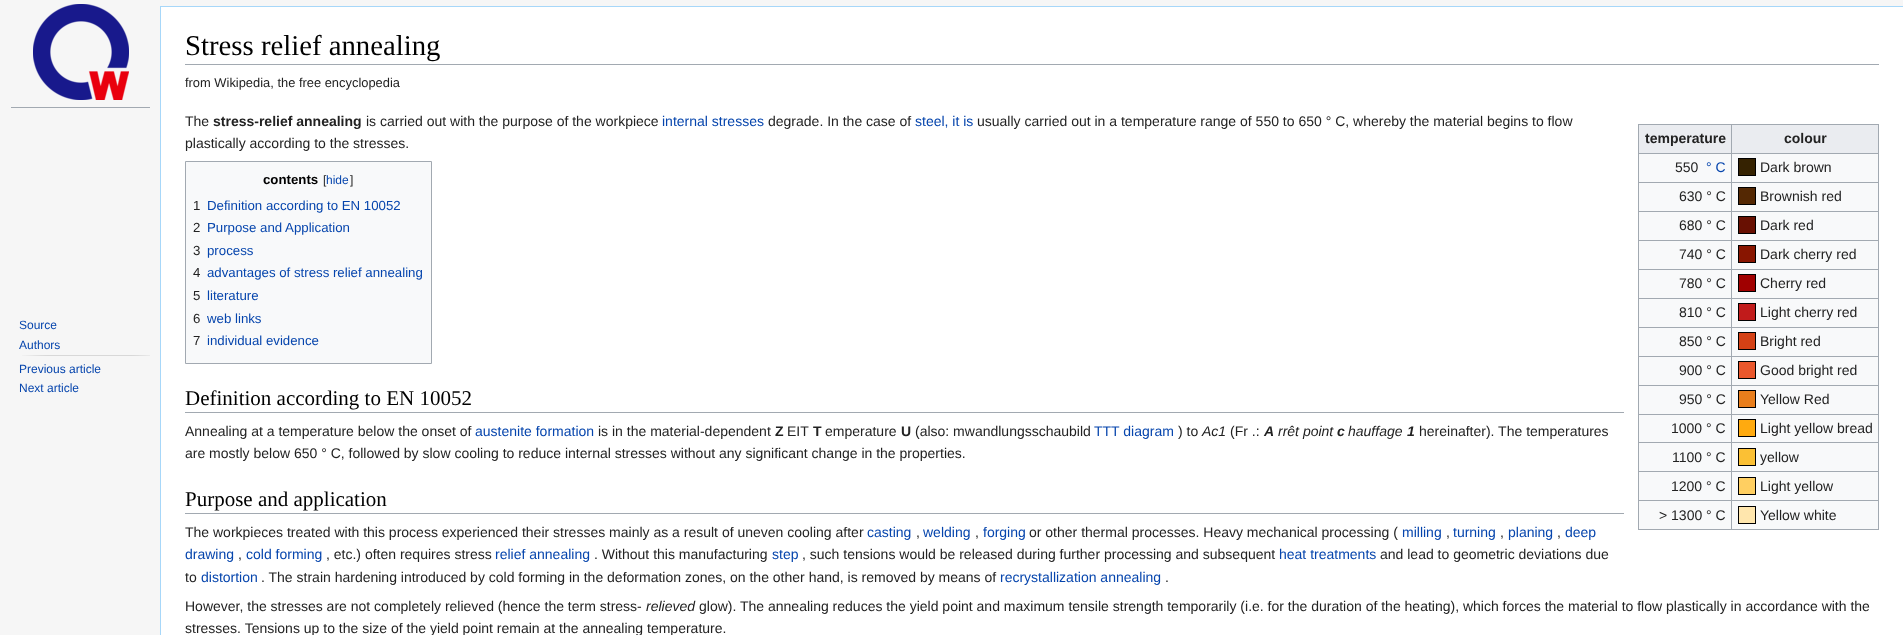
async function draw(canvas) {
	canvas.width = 1903;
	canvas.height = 635;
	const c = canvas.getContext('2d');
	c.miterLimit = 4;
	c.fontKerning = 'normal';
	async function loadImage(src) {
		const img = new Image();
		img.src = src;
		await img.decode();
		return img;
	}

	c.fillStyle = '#f6f6f6';
	c.fillRect(0, 0, 1903, 635);
	c.drawImage(await loadImage('img1.png'), 33, 4, 96, 96);
	c.fillStyle = '#a2a9b1';
	c.fillRect(11, 107, 139, 1);
	c.font = '12px Liberation Sans';
	c.fillStyle = '#0645ad';
	c.fillText('Source', 19, 329);
	c.fillText('Authors', 19, 349);
	c.drawImage(await loadImage('img2.png'), 22, 355, 128, 1);
	c.fillText('Previous article', 19, 373);
	c.fillText('Next article', 19, 392);
	for (const [x, y, w, h, color] of [
		[161, 7, 1742, 628, '#fff'],
		[160, 6, 1743, 1, '#a7d7f9'],
		[160, 6, 1, 629, '#a7d7f9'],
		[185, 64, 1694, 1, '#a2a9b1'],
	]) {
		c.fillStyle = color;
		c.fillRect(x, y, w, h);
	}
	c.font = '28.75px Liberation Serif';
	c.fillStyle = '#000';
	c.fillText('Stress relief annealing', 185, 55);
	c.font = '12.9px Liberation Sans';
	c.fillStyle = '#222';
	c.fillText('from Wikipedia, the free encyclopedia', 185, 87);
	c.font = '14px Liberation Sans';
	c.fillText('The', 185, 126);
	c.font = 'bold 14px Liberation Sans';
	c.fillText('stress-relief annealing', 213, 126);
	c.font = '14px Liberation Sans';
	c.fillText('is carried out with the purpose of the workpiece', 366, 126);
	c.fillStyle = '#0645ad';
	c.fillText('internal stresses', 662, 126);
	c.fillStyle = '#222';
	c.fillText('degrade. In the case of', 768, 126);
	c.fillStyle = '#0645ad';
	c.fillText('steel, it is', 915, 126);
	c.fillStyle = '#222';
	c.fillText('usually carried out in a temperature range of 550 to 650 ° C, whereby the material begins to flow', 977, 126);
	c.fillText('plastically according to the stresses.', 185, 148);
	for (const [x, y, w, h, color] of [
		[1639, 154, 239, 375, '#f8f9fa'],
		[1638, 124, 241, 1, '#a2a9b1'],
		[1878, 124, 1, 406, '#a2a9b1'],
		[1638, 529, 241, 1, '#a2a9b1'],
		[1638, 124, 1, 406, '#a2a9b1'],
		[1639, 125, 92, 28, '#eaecf0'],
	]) {
		c.fillStyle = color;
		c.fillRect(x, y, w, h);
	}
	c.font = 'bold 14px Liberation Sans';
	c.fillStyle = '#222';
	c.fillText('temperature', 1645, 143);
	for (const [x, y, w, h, color] of [
		[1732, 125, 146, 28, '#eaecf0'],
		[1731, 153, 148, 1, '#a2a9b1'],
		[1731, 182, 148, 1, '#a2a9b1'],
		[1731, 211, 148, 1, '#a2a9b1'],
		[1731, 240, 148, 1, '#a2a9b1'],
		[1731, 269, 148, 1, '#a2a9b1'],
		[1731, 298, 148, 1, '#a2a9b1'],
		[1731, 327, 148, 1, '#a2a9b1'],
		[1731, 356, 148, 1, '#a2a9b1'],
		[1731, 385, 148, 1, '#a2a9b1'],
		[1731, 414, 148, 1, '#a2a9b1'],
		[1731, 442, 148, 1, '#a2a9b1'],
		[1731, 471, 148, 1, '#a2a9b1'],
		[1731, 500, 148, 1, '#a2a9b1'],
		[1731, 500, 1, 30, '#a2a9b1'],
		[1638, 500, 94, 1, '#a2a9b1'],
		[1731, 471, 1, 30, '#a2a9b1'],
		[1638, 471, 94, 1, '#a2a9b1'],
		[1731, 442, 1, 30, '#a2a9b1'],
		[1638, 442, 94, 1, '#a2a9b1'],
		[1731, 414, 1, 29, '#a2a9b1'],
		[1638, 414, 94, 1, '#a2a9b1'],
		[1731, 385, 1, 30, '#a2a9b1'],
		[1638, 385, 94, 1, '#a2a9b1'],
		[1731, 356, 1, 30, '#a2a9b1'],
		[1638, 356, 94, 1, '#a2a9b1'],
		[1731, 327, 1, 30, '#a2a9b1'],
		[1638, 327, 94, 1, '#a2a9b1'],
		[1731, 298, 1, 30, '#a2a9b1'],
		[1638, 298, 94, 1, '#a2a9b1'],
		[1731, 269, 1, 30, '#a2a9b1'],
		[1638, 269, 94, 1, '#a2a9b1'],
		[1731, 240, 1, 30, '#a2a9b1'],
		[1638, 240, 94, 1, '#a2a9b1'],
		[1731, 211, 1, 30, '#a2a9b1'],
		[1638, 211, 94, 1, '#a2a9b1'],
		[1731, 182, 1, 30, '#a2a9b1'],
		[1638, 182, 94, 1, '#a2a9b1'],
		[1731, 153, 1, 30, '#a2a9b1'],
		[1638, 153, 94, 1, '#a2a9b1'],
		[1731, 124, 1, 30, '#a2a9b1'],
	]) {
		c.fillStyle = color;
		c.fillRect(x, y, w, h);
	}
	c.fillStyle = '#222';
	c.fillText('colour', 1784, 143);
	c.font = '14px Liberation Sans';
	c.fillText('550', 1675, 172);
	c.fillStyle = '#0645ad';
	c.fillText('° C', 1706, 172);
	c.strokeStyle = '#000';
	c.strokeRect(1738.5, 158.5, 17, 17);
	c.fillStyle = '#352201';
	c.fillRect(1739, 159, 16, 16);
	c.fillStyle = '#222';
	c.fillText('Dark brown', 1760, 172);
	c.fillText('630 ° C', 1679, 201);
	c.strokeRect(1738.5, 187.5, 17, 17);
	c.fillStyle = '#542803';
	c.fillRect(1739, 188, 16, 16);
	c.fillStyle = '#222';
	c.fillText('Brownish red', 1760, 201);
	c.fillText('680 ° C', 1679, 230);
	c.strokeRect(1738.5, 216.5, 17, 17);
	c.fillStyle = '#681002';
	c.fillRect(1739, 217, 16, 16);
	c.fillStyle = '#222';
	c.fillText('Dark red', 1760, 230);
	c.fillText('740 ° C', 1679, 259);
	c.strokeRect(1738.5, 245.5, 17, 17);
	c.fillStyle = '#881500';
	c.fillRect(1739, 246, 16, 16);
	c.fillStyle = '#222';
	c.fillText('Dark cherry red', 1760, 259);
	c.fillText('780 ° C', 1679, 288);
	c.strokeRect(1738.5, 274.5, 17, 17);
	c.fillStyle = '#a00000';
	c.fillRect(1739, 275, 16, 16);
	c.fillStyle = '#222';
	c.fillText('Cherry red', 1760, 288);
	c.fillText('810 ° C', 1679, 317);
	c.strokeRect(1738.5, 303.5, 17, 17);
	c.fillStyle = '#c11b1b';
	c.fillRect(1739, 304, 16, 16);
	c.fillStyle = '#222';
	c.fillText('Light cherry red', 1760, 317);
	c.fillText('850 ° C', 1679, 346);
	c.strokeRect(1738.5, 332.5, 17, 17);
	c.fillStyle = '#d44115';
	c.fillRect(1739, 333, 16, 16);
	c.fillStyle = '#222';
	c.fillText('Bright red', 1760, 346);
	c.fillText('900 ° C', 1679, 375);
	c.strokeRect(1738.5, 361.5, 17, 17);
	c.fillStyle = '#ea572c';
	c.fillRect(1739, 362, 16, 16);
	c.fillStyle = '#222';
	c.fillText('Good bright red', 1760, 375);
	c.fillText('950 ° C', 1679, 404);
	c.strokeRect(1738.5, 390.5, 17, 17);
	c.fillStyle = '#e97e1c';
	c.fillRect(1739, 391, 16, 16);
	c.fillStyle = '#222';
	c.fillText('Yellow Red', 1760, 404);
	c.fillText('1000 ° C', 1671, 433);
	c.strokeRect(1738.5, 419.5, 17, 17);
	c.fillStyle = '#ffaa0f';
	c.fillRect(1739, 420, 16, 16);
	c.fillStyle = '#222';
	c.fillText('Light yellow bread', 1760, 433);
	c.fillText('1100 ° C', 1672, 462);
	c.strokeRect(1738.5, 448.5, 17, 17);
	c.fillStyle = '#fbc034';
	c.fillRect(1739, 449, 16, 16);
	c.fillStyle = '#222';
	c.fillText('yellow', 1760, 462);
	c.fillText('1200 ° C', 1671, 491);
	c.strokeRect(1738.5, 477.5, 17, 17);
	c.fillStyle = '#ffcf61';
	c.fillRect(1739, 478, 16, 16);
	c.fillStyle = '#222';
	c.fillText('Light yellow', 1760, 491);
	c.fillText('> 1300 ° C', 1659, 520);
	c.strokeRect(1738.5, 506.5, 17, 17);
	c.fillStyle = '#ffe6ad';
	c.fillRect(1739, 507, 16, 16);
	c.fillStyle = '#222';
	c.fillText('Yellow white', 1760, 520);
	c.fillStyle = '#f8f9fa';
	c.beginPath();
	c.rect(185.5, 161.5, 246, 202);
	c.fill();
	c.strokeStyle = '#a2a9b1';
	c.stroke();
	c.font = 'bold 13.25px Liberation Sans';
	c.fillStyle = '#000';
	c.fillText('contents', 263, 184);
	c.font = '12px Liberation Sans';
	c.fillStyle = '#222';
	c.fillText('[', 323, 184);
	c.fillStyle = '#0645ad';
	c.fillText('hide', 326, 184);
	c.fillStyle = '#222';
	c.fillText(']', 350, 184);
	c.font = '13.25px Liberation Sans';
	c.fillText('1', 193, 210);
	c.fillStyle = '#0645ad';
	c.fillText('Definition according to EN 10052', 207, 210);
	c.fillStyle = '#222';
	c.fillText('2', 193, 232);
	c.fillStyle = '#0645ad';
	c.fillText('Purpose and Application', 207, 232);
	c.fillStyle = '#222';
	c.fillText('3', 193, 255);
	c.fillStyle = '#0645ad';
	c.fillText('process', 207, 255);
	c.fillStyle = '#222';
	c.fillText('4', 193, 277);
	c.fillStyle = '#0645ad';
	c.fillText('advantages of stress relief annealing', 207, 277);
	c.fillStyle = '#222';
	c.fillText('5', 193, 300);
	c.fillStyle = '#0645ad';
	c.fillText('literature', 207, 300);
	c.fillStyle = '#222';
	c.fillText('6', 193, 323);
	c.fillStyle = '#0645ad';
	c.fillText('web links', 207, 323);
	c.fillStyle = '#222';
	c.fillText('7', 193, 345);
	c.fillStyle = '#0645ad';
	c.fillText('individual evidence', 207, 345);
	c.fillStyle = '#a2a9b1';
	c.fillRect(185, 412, 1439, 1);
	c.font = '21px Liberation Serif';
	c.fillStyle = '#000';
	c.fillText('Definition according to EN 10052', 185, 405);
	c.font = '14px Liberation Sans';
	c.fillStyle = '#222';
	c.fillText('Annealing at a temperature below the onset of', 185, 436);
	c.fillStyle = '#0645ad';
	c.fillText('austenite formation', 475, 436);
	c.fillStyle = '#222';
	c.fillText('is in the material-dependent', 598, 436);
	c.font = 'bold 14px Liberation Sans';
	c.fillText('Z', 775, 436);
	c.font = '14px Liberation Sans';
	c.fillText('EIT', 787, 436);
	c.font = 'bold 14px Liberation Sans';
	c.fillText('T', 813, 436);
	c.font = '14px Liberation Sans';
	c.fillText('emperature', 825, 436);
	c.font = 'bold 14px Liberation Sans';
	c.fillText('U', 901, 436);
	c.font = '14px Liberation Sans';
	c.fillText('(also: mwandlungsschaubild', 915, 436);
	c.fillStyle = '#0645ad';
	c.fillText('TTT diagram', 1094, 436);
	c.fillStyle = '#222';
	c.fillText(') to', 1178, 436);
	c.font = 'italic 14px Liberation Sans';
	c.fillText('Ac1', 1202, 436);
	c.font = '14px Liberation Sans';
	c.fillText('(Fr .:', 1230, 436);
	c.font = 'italic bold 14px Liberation Sans';
	c.fillText('A', 1264, 436);
	c.font = 'italic 14px Liberation Sans';
	c.fillText('rrêt point', 1278, 436);
	c.font = 'italic bold 14px Liberation Sans';
	c.fillText('c', 1337, 436);
	c.font = 'italic 14px Liberation Sans';
	c.fillText('hauffage', 1348, 436);
	c.font = 'italic bold 14px Liberation Sans';
	c.fillText('1', 1407, 436);
	c.font = '14px Liberation Sans';
	c.fillText('hereinafter). The temperatures', 1419, 436);
	c.fillText('are mostly below 650 ° C, followed by slow cooling to reduce internal stresses without any significant change in the properties.', 185, 458);
	c.fillStyle = '#a2a9b1';
	c.fillRect(185, 513, 1439, 1);
	c.font = '21px Liberation Serif';
	c.fillStyle = '#000';
	c.fillText('Purpose and application', 185, 506);
	c.font = '14px Liberation Sans';
	c.fillStyle = '#222';
	c.fillText('The workpieces treated with this process experienced their stresses mainly as a result of uneven cooling after', 185, 537);
	c.fillStyle = '#0645ad';
	c.fillText('casting', 867, 537);
	c.fillStyle = '#222';
	c.fillText(',', 916, 537);
	c.fillStyle = '#0645ad';
	c.fillText('welding', 923, 537);
	c.fillStyle = '#222';
	c.fillText(',', 975, 537);
	c.fillStyle = '#0645ad';
	c.fillText('forging', 983, 537);
	c.fillStyle = '#222';
	c.fillText('or other thermal processes. Heavy mechanical processing (', 1029, 537);
	c.fillStyle = '#0645ad';
	c.fillText('milling', 1402, 537);
	c.fillStyle = '#222';
	c.fillText(',', 1446, 537);
	c.fillStyle = '#0645ad';
	c.fillText('turning', 1453, 537);
	c.fillStyle = '#222';
	c.fillText(',', 1500, 537);
	c.fillStyle = '#0645ad';
	c.fillText('planing', 1508, 537);
	c.fillStyle = '#222';
	c.fillText(',', 1557, 537);
	c.fillStyle = '#0645ad';
	c.fillText('deep', 1565, 537);
	c.fillText('drawing', 185, 559);
	c.fillStyle = '#222';
	c.fillText(',', 238, 559);
	c.fillStyle = '#0645ad';
	c.fillText('cold forming', 246, 559);
	c.fillStyle = '#222';
	c.fillText(', etc.) often requires stress', 326, 559);
	c.fillStyle = '#0645ad';
	c.fillText('relief annealing', 495, 559);
	c.fillStyle = '#222';
	c.fillText('. Without this manufacturing', 594, 559);
	c.fillStyle = '#0645ad';
	c.fillText('step', 772, 559);
	c.fillStyle = '#222';
	c.fillText(', such tensions would be released during further processing and subsequent', 802, 559);
	c.fillStyle = '#0645ad';
	c.fillText('heat treatments', 1279, 559);
	c.fillStyle = '#222';
	c.fillText('and lead to geometric deviations due', 1380, 559);
	c.fillText('to', 185, 582);
	c.fillStyle = '#0645ad';
	c.fillText('distortion', 201, 582);
	c.fillStyle = '#222';
	c.fillText('. The strain hardening introduced by cold forming in the deformation zones, on the other hand, is removed by means of', 261, 582);
	c.fillStyle = '#0645ad';
	c.fillText('recrystallization annealing', 1000, 582);
	c.fillStyle = '#222';
	c.fillText('.', 1165, 582);
	c.fillText('However, the stresses are not completely relieved (hence the term stress-', 185, 611);
	c.font = 'italic 14px Liberation Sans';
	c.fillText('relieved', 646, 611);
	c.font = '14px Liberation Sans';
	c.fillText('glow). The annealing reduces the yield point and maximum tensile strength temporarily (i.e. for the duration of the heating), which forces the material to flow plastically in accordance with the', 699, 611);
	c.fillText('stresses. Tensions up to the size of the yield point remain at the annealing temperature.', 185, 633);
}

draw(document.querySelector('canvas'));
